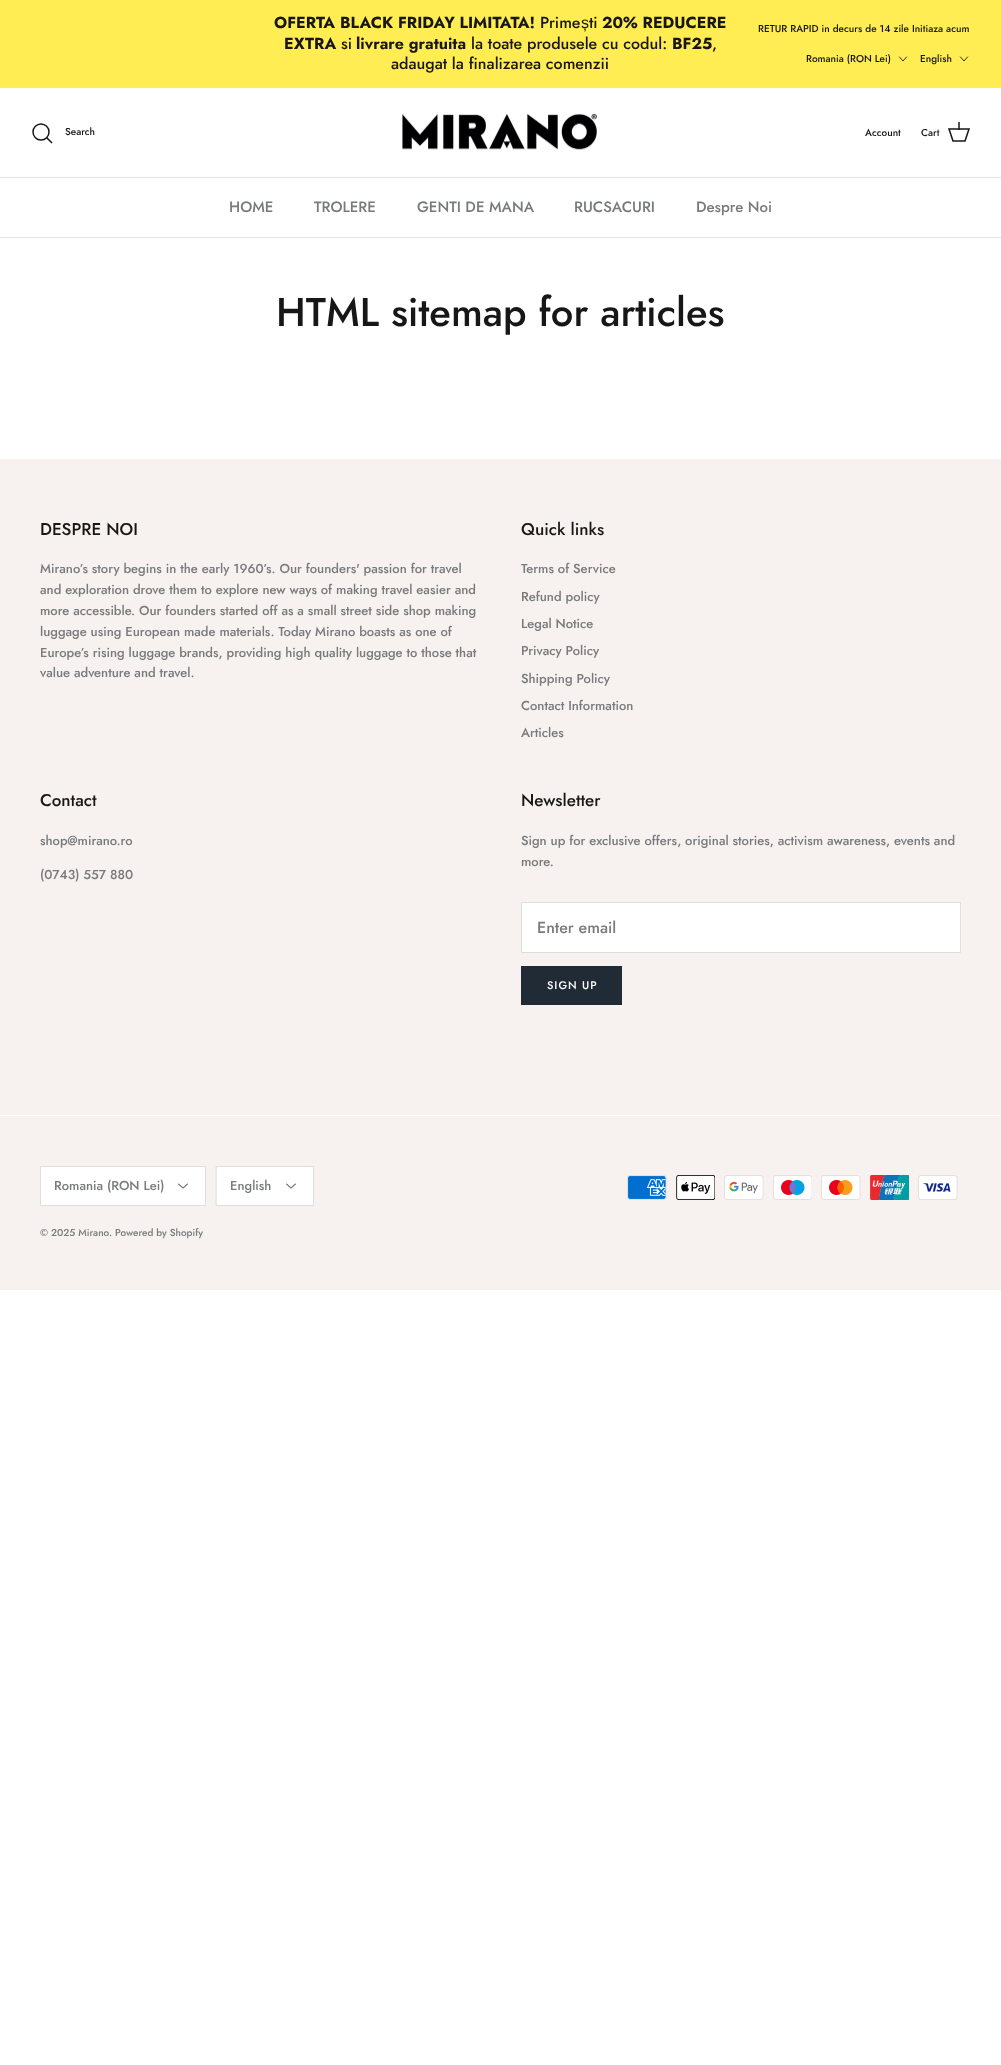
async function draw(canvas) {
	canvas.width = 1001;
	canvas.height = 2065;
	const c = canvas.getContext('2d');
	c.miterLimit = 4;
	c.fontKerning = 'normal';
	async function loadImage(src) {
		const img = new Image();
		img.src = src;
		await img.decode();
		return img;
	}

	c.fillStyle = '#fff';
	c.fillRect(0, 0, 1001, 2065);
	c.fillStyle = '#ffed53';
	c.fillRect(0, 0, 1001, 88);
	c.font = 'bold 16px Jost';
	c.fillStyle = '#171717';
	c.fillText('OFERTA BLACK FRIDAY LIMITATA!', 274, 28);
	c.font = '500 16px Jost';
	c.fillText('Prime', 540, 28);
	c.font = '16px Liberation Sans';
	c.fillText('ș', 581, 28);
	c.font = '500 16px Jost';
	c.fillText('ti', 589, 28);
	c.font = 'bold 16px Jost';
	c.fillText('20% REDUCERE', 602, 28);
	c.fillText('EXTRA', 284, 49);
	c.font = '500 16px Jost';
	c.fillText('si', 341, 49);
	c.font = 'bold 16px Jost';
	c.fillText('livrare gratuita', 356, 49);
	c.font = '500 16px Jost';
	c.fillText('la toate produsele cu codul:', 471, 49);
	c.font = 'bold 16px Jost';
	c.fillText('BF25', 672, 49);
	c.font = '500 16px Jost';
	c.fillText(',', 712, 49);
	c.fillText('adaugat la finalizarea comenzii', 391, 69);
	c.font = '500 10px Jost';
	c.fillText('RETUR RAPID in decurs de 14 zile Initiaza acum', 758, 32);
	c.fillText('Romania (RON Lei)', 806, 62);
	c.beginPath();
	c.moveTo(899.5, 57);
	c.lineTo(903, 61);
	c.lineTo(906.5, 57);
	c.strokeStyle = '#171717';
	c.lineWidth = 0.9;
	c.lineCap = 'round';
	c.lineJoin = 'round';
	c.stroke();
	c.fillText('English', 920, 62);
	c.beginPath();
	c.moveTo(960.5, 57);
	c.lineTo(964, 61);
	c.lineTo(967.5, 57);
	c.stroke();
	c.fillStyle = '#dfe3e8';
	c.fillRect(0, 177, 1001, 1);
	c.beginPath();
	c.arc(41, 132, 8, 0, 2 * Math.PI);
	c.lineWidth = 1.5;
	c.stroke();
	c.fillStyle = '#171717';
	c.fillText('Search', 65, 135);
	c.beginPath();
	c.moveTo(47, 138);
	c.lineTo(51.5, 142.5);
	c.lineCap = 'square';
	c.lineJoin = 'miter';
	c.stroke();
	c.drawImage(await loadImage('img1.png'), 402, 113, 195, 37);
	c.fillText('Account', 865, 136);
	c.fillText('Cart', 921, 136);
	c.beginPath();
	c.moveTo(949, 129);
	c.lineTo(969, 129);
	c.lineTo(965, 141);
	c.lineTo(953, 141);
	c.closePath();
	c.lineCap = 'butt';
	c.stroke();
	c.fillStyle = '#171717bf';
	c.fillRect(958, 122, 2, 8);
	c.fillStyle = '#dfe3e8';
	c.fillRect(0, 237, 1001, 1);
	c.font = '500 15px Jost';
	c.fillStyle = '#787a7c';
	for (const [text, x, y] of [
		['HOME', 229, 212],
		['TROLERE', 314, 212],
		['GENTI DE MANA', 417, 212],
		['RUCSACURI', 574, 212],
		['Despre Noi', 696, 212],
	]) {
		c.fillText(text, x, y);
	}
	c.font = '500 40px Jost';
	c.fillStyle = '#171717';
	c.fillText('HTML sitemap for articles', 276, 326);
	c.fillStyle = '#f7f1f0';
	c.fillRect(0, 459, 1001, 831);
	c.font = '500 17px Jost';
	c.fillStyle = '#171717';
	c.fillText('DESPRE NOI', 40, 535);
	c.font = '500 13px Jost';
	c.fillStyle = '#787a7c';
	for (const [text, x, y] of [
		['Mirano’s story begins in the early 1960’s. Our founders\' passion for travel', 40, 573],
		['and exploration drove them to explore new ways of making travel easier and', 40, 594],
		['more accessible. Our founders started off as a small street side shop making', 40, 615],
		['luggage using European made materials. Today Mirano boasts as one of', 40, 636],
		['Europe’s rising luggage brands, providing high quality luggage to those that', 40, 657],
		['value adventure and travel.', 40, 677],
	]) {
		c.fillText(text, x, y);
	}
	c.font = '500 17px Jost';
	c.fillStyle = '#171717';
	c.fillText('Quick links', 521, 535);
	c.font = '500 13px Jost';
	c.fillStyle = '#787a7c';
	for (const [text, x, y] of [
		['Terms of Service', 521, 573],
		['Refund policy', 521, 601],
		['Legal Notice', 521, 628],
		['Privacy Policy', 521, 655],
		['Shipping Policy', 521, 683],
		['Contact Information', 521, 710],
		['Articles', 521, 737],
	]) {
		c.fillText(text, x, y);
	}
	c.font = '500 17px Jost';
	c.fillStyle = '#171717';
	c.fillText('Contact', 40, 806);
	c.font = '500 13px Jost';
	c.fillStyle = '#787a7c';
	c.fillText('shop@mirano.ro', 40, 845);
	c.fillText('(0743) 557 880', 40, 879);
	c.font = '500 17px Jost';
	c.fillStyle = '#171717';
	c.fillText('Newsletter', 521, 806);
	c.font = '500 13px Jost';
	c.fillStyle = '#787a7c';
	c.fillText('Sign up for exclusive offers, original stories, activism awareness, events and', 521, 845);
	c.fillText('more.', 521, 866);
	c.fillStyle = '#fff';
	c.beginPath();
	c.rect(521.5, 902.5, 439, 50);
	c.fill();
	c.strokeStyle = '#dddede';
	c.lineWidth = 1;
	c.stroke();
	c.font = '500 16px Jost';
	c.fillStyle = '#787a7c';
	c.fillText('Enter email', 537, 933);
	c.fillStyle = '#212b36';
	c.fillRect(521, 966, 101, 39);
	c.letterSpacing = '1px';
	c.font = '500 11px Jost';
	c.fillStyle = '#fff';
	c.fillText('SIGN UP', 547, 989);
	c.fillRect(0, 1115, 1001, 1);
	c.beginPath();
	c.rect(40.5, 1166.5, 165, 39);
	c.fill();
	c.stroke();
	c.letterSpacing = '0px';
	c.font = '500 13px Jost';
	c.fillStyle = '#787a7c';
	c.fillText('Romania (RON Lei)', 54, 1190);
	c.beginPath();
	c.moveTo(178.5, 1184);
	c.lineTo(183, 1188);
	c.lineTo(187.5, 1184);
	c.strokeStyle = '#787a7c';
	c.lineWidth = 1.1;
	c.lineCap = 'round';
	c.lineJoin = 'round';
	c.stroke();
	c.fillStyle = '#fff';
	c.beginPath();
	c.rect(216.5, 1166.5, 97, 39);
	c.fill();
	c.strokeStyle = '#dddede';
	c.lineWidth = 1;
	c.lineJoin = 'miter';
	c.stroke();
	c.fillStyle = '#787a7c';
	c.fillText('English', 230, 1190);
	c.beginPath();
	c.moveTo(286.5, 1184);
	c.lineTo(291, 1188);
	c.lineTo(295.5, 1184);
	c.strokeStyle = '#787a7c';
	c.lineWidth = 1.1;
	c.lineJoin = 'round';
	c.stroke();
	c.font = '500 10px Jost';
	c.fillText('© 2025 Mirano', 40, 1236);
	c.fillText('. Powered by Shopify', 109, 1236);
	c.drawImage(await loadImage('img2.png'), 627, 1175, 40, 25);
	c.drawImage(await loadImage('img3.png'), 676, 1175, 39, 25);
	c.drawImage(await loadImage('img4.png'), 724, 1175, 40, 25);
	c.drawImage(await loadImage('img5.png'), 773, 1175, 39, 25);
	c.drawImage(await loadImage('img6.png'), 821, 1175, 40, 25);
	c.drawImage(await loadImage('img7.png'), 870, 1175, 39, 25);
	c.drawImage(await loadImage('img8.png'), 918, 1175, 40, 25);
}

draw(document.querySelector('canvas'));
